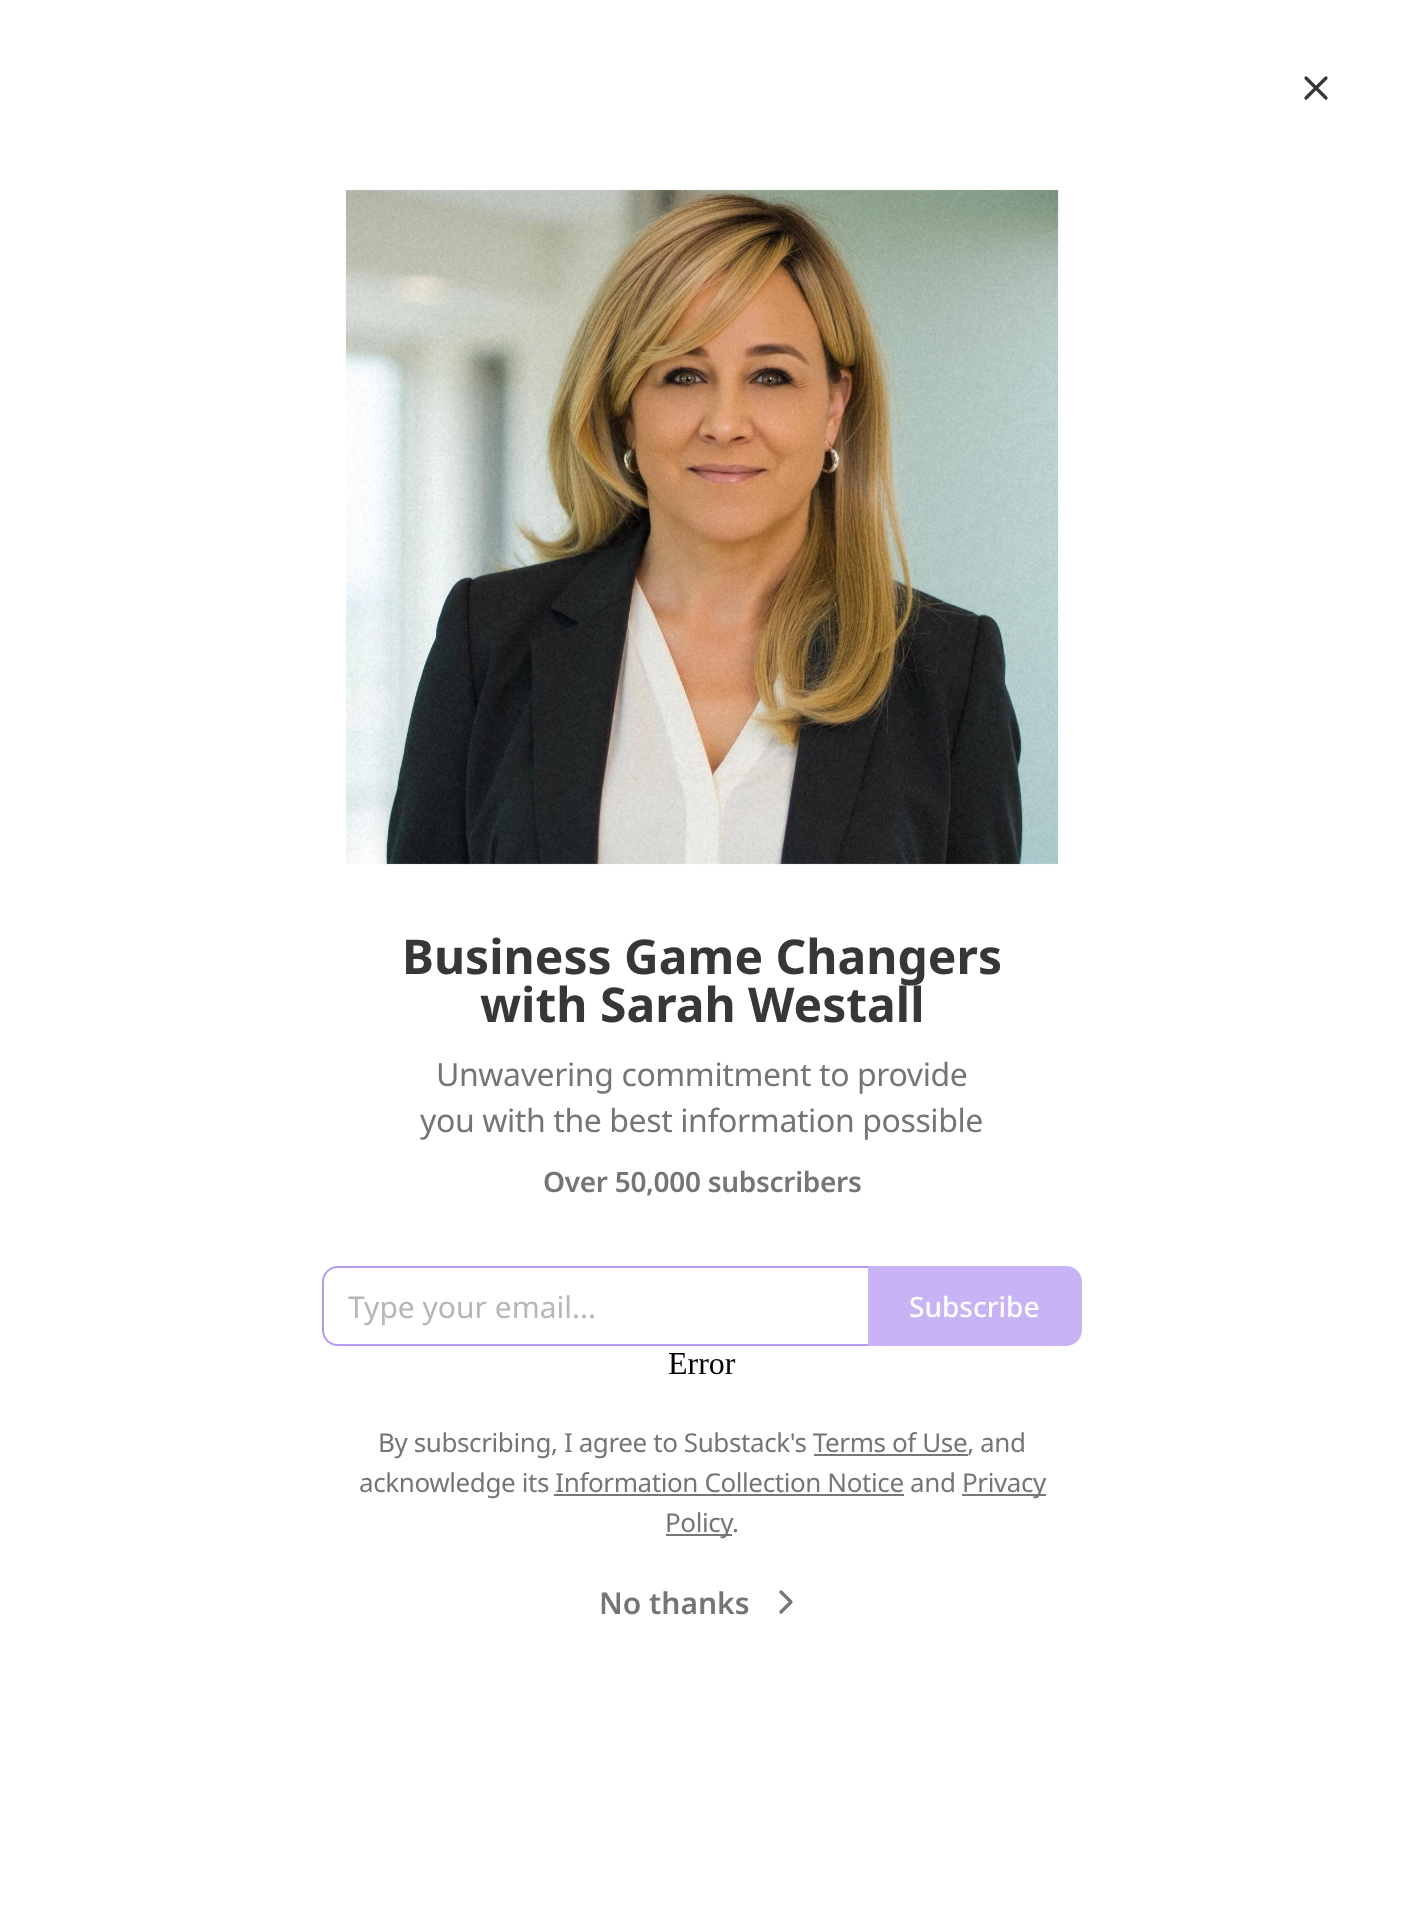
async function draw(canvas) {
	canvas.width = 1403;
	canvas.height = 1928;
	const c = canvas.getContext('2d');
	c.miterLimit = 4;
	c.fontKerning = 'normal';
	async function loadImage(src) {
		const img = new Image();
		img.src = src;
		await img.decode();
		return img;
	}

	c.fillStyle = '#fff';
	c.fillRect(0, 0, 1403, 1928);
	c.beginPath();
	c.moveTo(1326, 78);
	c.lineTo(1306, 98);
	c.moveTo(1306, 78);
	c.lineTo(1326, 98);
	c.strokeStyle = '#363737';
	c.lineWidth = 3.3;
	c.lineCap = 'round';
	c.lineJoin = 'round';
	c.stroke();
	c.drawImage(await loadImage('img1.png'), 345, 189, 714, 676);
	c.font = 'bold 48px Noto Sans';
	c.fillStyle = '#363737';
	c.fillText('Business Game Changers', 402, 974);
	c.fillText('with Sarah Westall', 480, 1022);
	c.letterSpacing = '-0.4px';
	c.font = '32px Noto Sans';
	c.fillStyle = '#757575';
	c.fillText('Unwavering commitment to provide', 436, 1086);
	c.fillText('you with the best information possible', 420, 1132);
	c.letterSpacing = '-0.3px';
	c.font = '600 28px Noto Sans';
	c.fillText('Over 50,000 subscribers', 543, 1192);
	c.fillStyle = '#b599f1';
	c.beginPath();
	c.moveTo(338, 1266);
	c.lineTo(868, 1266);
	c.lineTo(868, 1346);
	c.lineTo(338, 1346);
	c.bezierCurveTo(329, 1346, 322, 1339, 322, 1330);
	c.lineTo(322, 1282);
	c.bezierCurveTo(322, 1273, 329, 1266, 338, 1266);
	c.closePath();
	c.moveTo(338, 1268);
	c.lineTo(868, 1268);
	c.lineTo(868, 1344);
	c.lineTo(338, 1344);
	c.bezierCurveTo(330, 1344, 324, 1338, 324, 1330);
	c.lineTo(324, 1282);
	c.bezierCurveTo(324, 1274, 330, 1268, 338, 1268);
	c.closePath();
	c.fill('evenodd');
	c.letterSpacing = '0px';
	c.font = '30px Noto Sans';
	c.fillStyle = '#b6b6b6';
	c.fillText('Type your email...', 348, 1318);
	c.fillStyle = '#c8b3f5';
	c.beginPath();
	c.roundRect(869, 1267, 212, 78, [0, 15, 15, 0]);
	c.fill();
	c.strokeStyle = '#c8b3f5';
	c.lineWidth = 2;
	c.lineJoin = 'miter';
	c.stroke();
	c.font = '500 28px Noto Sans';
	c.fillStyle = '#fff';
	c.fillText('Subscribe', 909, 1317);
	c.font = '32px Liberation Serif';
	c.fillStyle = '#000';
	c.fillText('Error', 668, 1374);
	c.letterSpacing = '-0.4px';
	c.font = '26px Noto Sans';
	c.fillStyle = '#757575';
	c.fillText('By subscribing, I agree to Substack\'s Terms of Use, and', 378, 1452);
	c.fillStyle = '#777';
	c.fillRect(814, 1454, 154, 2);
	c.fillStyle = '#757575';
	c.fillText('acknowledge its Information Collection Notice and', 359, 1492);
	c.fillStyle = '#777';
	c.fillRect(962, 1494, 84, 2);
	c.fillStyle = '#757575';
	c.fillText('Privacy', 962, 1492);
	c.fillStyle = '#777';
	c.fillRect(554, 1494, 350, 2);
	c.fillRect(666, 1534, 66, 2);
	c.fillStyle = '#757575';
	c.fillText('Policy', 665, 1532);
	c.fillText('.', 732, 1532);
	c.letterSpacing = '0px';
	c.font = '600 30px Noto Sans';
	c.fillText('No thanks', 599, 1614);
	c.beginPath();
	c.moveTo(781, 1612);
	c.lineTo(791, 1602);
	c.lineTo(781, 1592);
	c.strokeStyle = '#757575';
	c.lineWidth = 3.3;
	c.lineJoin = 'round';
	c.stroke();
}

draw(document.querySelector('canvas'));
